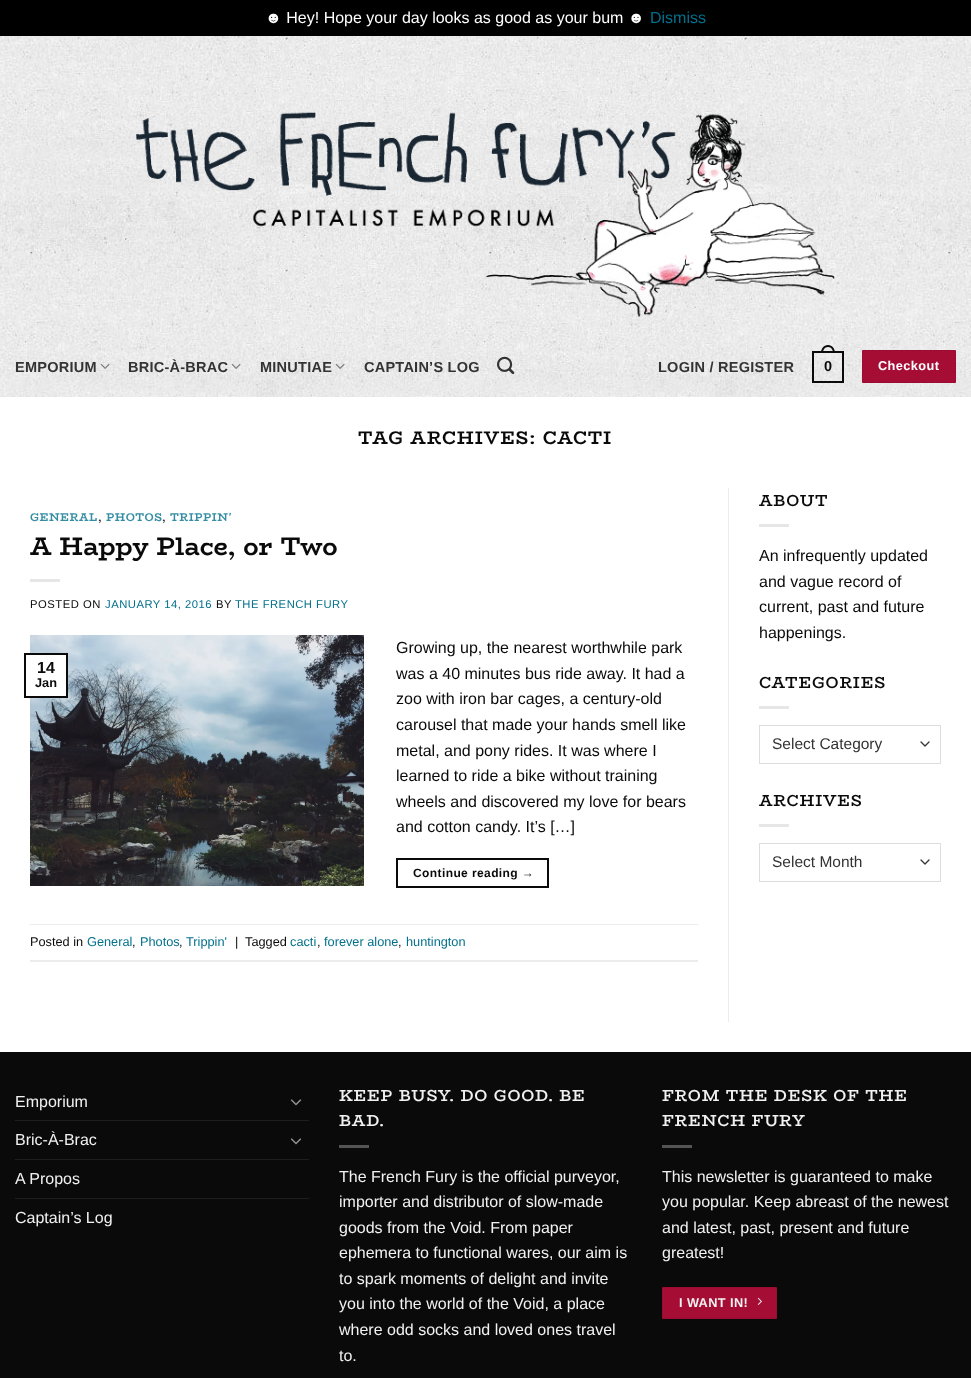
async function draw(canvas) {
	canvas.width = 971;
	canvas.height = 1378;
	const c = canvas.getContext('2d');
	c.miterLimit = 4;
	c.fontKerning = 'normal';
	async function loadImage(src) {
		const img = new Image();
		img.src = src;
		await img.decode();
		return img;
	}

	c.fillStyle = '#000';
	c.fillRect(0, 0, 971, 1378);
	c.font = '16px Liberation Sans';
	c.fillStyle = '#fff';
	c.fillText('☻ Hey! Hope your day looks as good as your bum ☻', 265, 23);
	c.fillStyle = '#02708c';
	c.fillText('Dismiss', 650, 23);
	c.fillStyle = '#fff';
	c.fillRect(0, 397, 971, 655);
	c.drawImage(await loadImage('img1.png'), 0, 36, 971, 361);
	c.drawImage(await loadImage('img2.png'), 136, 95, 699, 222);
	c.letterSpacing = '0.25px';
	c.font = 'bold 14.5px Liberation Sans';
	c.fillStyle = '#333';
	c.fillText('EMPORIUM', 15, 372);
	c.drawImage(await loadImage('img3.png'), 100, 363, 10, 6);
	c.fillText('BRIC-À-BRAC', 128, 372);
	c.drawImage(await loadImage('img4.png'), 231, 363, 10, 6);
	c.fillText('MINUTIAE', 260, 372);
	c.drawImage(await loadImage('img5.png'), 335, 363, 10, 6);
	c.fillText('CAPTAIN’S LOG', 364, 372);
	c.drawImage(await loadImage('img6.png'), 497, 356, 18, 18);
	c.fillText('LOGIN / REGISTER', 658, 372);
	c.strokeStyle = '#0a0a0a';
	c.lineWidth = 2;
	c.strokeRect(813, 352, 30, 30);
	c.fillStyle = '#0a0a0a';
	c.beginPath();
	c.moveTo(828, 345);
	c.bezierCurveTo(832.5, 345, 835, 349, 835, 353);
	c.lineTo(821, 353);
	c.bezierCurveTo(821, 349, 823.5, 345, 828, 345);
	c.closePath();
	c.moveTo(828, 347);
	c.bezierCurveTo(831.5, 347, 833, 350, 833, 353);
	c.lineTo(823, 353);
	c.bezierCurveTo(823, 350, 824.5, 347, 828, 347);
	c.closePath();
	c.fill('evenodd');
	c.fillText('0', 824, 371);
	c.fillStyle = '#a50d35';
	c.beginPath();
	c.roundRect(862, 350, 94, 33, 1);
	c.fill();
	c.strokeStyle = '#0000000d';
	c.lineWidth = 1;
	c.strokeRect(862.5, 350.5, 93, 32);
	c.letterSpacing = '0.4px';
	c.font = 'bold 12.75px Liberation Sans';
	c.fillStyle = '#fff';
	c.fillText('Checkout', 878, 370);
	c.letterSpacing = '0.9px';
	c.font = 'bold 18.4px BioRhyme';
	c.fillStyle = '#0a0a0a';
	c.fillText('TAG ARCHIVES: CACTI', 358, 444);
	c.letterSpacing = '0.5px';
	c.font = 'bold 11.25px BioRhyme';
	c.fillStyle = '#358da3';
	c.fillText('GENERAL', 30, 521);
	c.fillStyle = '#3b3b3b';
	c.fillText(',', 98, 521);
	c.fillStyle = '#358da3';
	c.fillText('PHOTOS', 106, 521);
	c.fillStyle = '#3b3b3b';
	c.fillText(',', 162, 521);
	c.fillStyle = '#358da3';
	c.fillText('TRIPPIN\'', 170, 521);
	c.letterSpacing = '0px';
	c.font = 'bold 25.6px BioRhyme';
	c.fillStyle = '#0a0a0a';
	c.fillText('A Happy Place, or Two', 30, 555);
	c.fillStyle = '#e6e6e6';
	c.fillRect(30, 579, 30, 3);
	c.letterSpacing = '0.5px';
	c.font = '11.25px Liberation Sans';
	c.fillStyle = '#0a0a0a';
	c.fillText('POSTED ON', 30, 608);
	c.fillStyle = '#02708c';
	c.fillText('JANUARY 14, 2016', 105, 608);
	c.fillStyle = '#0a0a0a';
	c.fillText('BY', 216, 608);
	c.fillStyle = '#02708c';
	c.fillText('THE FRENCH FURY', 235, 608);
	c.drawImage(await loadImage('img7.png'), 30, 635, 334, 251);
	c.fillStyle = '#fff';
	c.fillRect(30, 655, 36, 41);
	c.strokeStyle = '#0a0a0a';
	c.lineWidth = 2;
	c.strokeRect(25, 654, 42, 43);
	c.letterSpacing = '0px';
	c.font = 'bold 16px Liberation Sans';
	c.fillStyle = '#0a0a0a';
	c.fillText('14', 37, 673);
	c.font = 'bold 12.75px Liberation Sans';
	c.fillText('Jan', 35, 687);
	c.font = '16px Liberation Sans';
	for (const [text, x, y] of [
		['Growing up, the nearest worthwhile park', 396, 653],
		['was a 40 minutes bus ride away. It had a', 396, 679],
		['zoo with iron bar cages, a century-old', 396, 704],
		['carousel that made your hands smell like', 396, 730],
		['metal, and pony rides. It was where I', 396, 756],
		['learned to ride a bike without training', 396, 781],
		['wheels and discovered my love for bears', 396, 807],
		['and cotton candy. It’s […]', 396, 832],
	]) {
		c.fillText(text, x, y);
	}
	c.beginPath();
	c.rect(397, 859, 151, 28);
	c.stroke();
	c.letterSpacing = '0.4px';
	c.font = 'bold 12px Liberation Sans';
	c.fillText('Continue reading →', 413, 877);
	c.fillStyle = '#ececec';
	c.fillRect(30, 924, 668, 1);
	c.fillRect(30, 960, 668, 2);
	c.letterSpacing = '0px';
	c.font = '12.75px Liberation Sans';
	c.fillStyle = '#0a0a0a';
	c.fillText('Posted in', 30, 946);
	c.fillStyle = '#02708c';
	c.fillText('General', 87, 946);
	c.fillStyle = '#0a0a0a';
	c.fillText(',', 132, 946);
	c.fillStyle = '#02708c';
	c.fillText('Photos', 140, 946);
	c.fillStyle = '#0a0a0a';
	c.fillText(',', 179, 946);
	c.fillStyle = '#02708c';
	c.fillText('Trippin\'', 186, 946);
	c.fillStyle = '#0a0a0a';
	c.fillText('|', 235, 946);
	c.fillText('Tagged', 245, 946);
	c.fillStyle = '#02708c';
	c.fillText('cacti', 290, 946);
	c.fillStyle = '#0a0a0a';
	c.fillText(',', 317, 946);
	c.fillStyle = '#02708c';
	c.fillText('forever alone', 324, 946);
	c.fillStyle = '#0a0a0a';
	c.fillText(',', 398, 946);
	c.fillStyle = '#02708c';
	c.fillText('huntington', 406, 946);
	c.fillStyle = '#ececec';
	c.fillRect(728, 488, 1, 534);
	c.letterSpacing = '0.8px';
	c.font = '600 16px BioRhyme';
	c.fillStyle = '#0a0a0a';
	c.fillText('ABOUT', 759, 506);
	c.fillStyle = '#e6e6e6';
	c.fillRect(759, 524, 30, 3);
	c.letterSpacing = '0px';
	c.font = '16px Liberation Sans';
	c.fillStyle = '#0a0a0a';
	for (const [text, x, y] of [
		['An infrequently updated', 759, 561],
		['and vague record of', 759, 587],
		['current, past and future', 759, 612],
		['happenings.', 759, 638],
	]) {
		c.fillText(text, x, y);
	}
	c.letterSpacing = '0.8px';
	c.font = '600 16px BioRhyme';
	c.fillText('CATEGORIES', 759, 688);
	c.fillStyle = '#e6e6e6';
	c.fillRect(759, 706, 30, 3);
	c.beginPath();
	c.moveTo(921, 742);
	c.lineTo(925, 746);
	c.lineTo(929, 742);
	c.strokeStyle = '#333';
	c.lineWidth = 1.3;
	c.lineCap = 'round';
	c.lineJoin = 'round';
	c.stroke();
	c.strokeStyle = '#ddd';
	c.lineWidth = 1;
	c.lineJoin = 'miter';
	c.strokeRect(759.5, 725.5, 181, 38);
	c.letterSpacing = '0px';
	c.font = '15.5px Liberation Sans';
	c.fillStyle = '#333';
	c.fillText('Select Category', 772, 749);
	c.letterSpacing = '0.8px';
	c.font = '600 16px BioRhyme';
	c.fillStyle = '#0a0a0a';
	c.fillText('ARCHIVES', 759, 806);
	c.fillStyle = '#e6e6e6';
	c.fillRect(759, 824, 30, 3);
	c.beginPath();
	c.moveTo(921, 860);
	c.lineTo(925, 864);
	c.lineTo(929, 860);
	c.strokeStyle = '#333';
	c.lineWidth = 1.3;
	c.lineJoin = 'round';
	c.stroke();
	c.strokeStyle = '#ddd';
	c.lineWidth = 1;
	c.lineJoin = 'miter';
	c.strokeRect(759.5, 843.5, 181, 38);
	c.letterSpacing = '0px';
	c.font = '15.5px Liberation Sans';
	c.fillStyle = '#333';
	c.fillText('Select Month', 772, 867);
	c.fillStyle = '#0a0a0a';
	c.fillRect(0, 1052, 971, 326);
	c.font = '16px Liberation Sans';
	c.fillStyle = '#f1f1f1';
	c.fillText('Emporium', 15, 1107);
	c.drawImage(await loadImage('img8.png'), 290, 1099, 12, 7);
	c.fillStyle = '#1e1e1e';
	c.fillRect(15, 1120, 294, 1);
	c.fillStyle = '#f1f1f1';
	c.fillText('Bric-À-Brac', 15, 1145);
	c.drawImage(await loadImage('img8.png'), 290, 1138, 12, 7);
	c.fillStyle = '#1e1e1e';
	c.fillRect(15, 1159, 294, 1);
	c.fillStyle = '#f1f1f1';
	c.fillText('A Propos', 15, 1184);
	c.fillStyle = '#1e1e1e';
	c.fillRect(15, 1198, 294, 1);
	c.fillStyle = '#f1f1f1';
	c.fillText('Captain’s Log', 15, 1223);
	c.letterSpacing = '0.8px';
	c.font = '600 16px BioRhyme';
	c.fillText('KEEP BUSY. DO GOOD. BE', 339, 1101);
	c.fillText('BAD.', 339, 1126);
	c.fillStyle = '#545454';
	c.fillRect(339, 1145, 30, 3);
	c.letterSpacing = '0px';
	c.font = '16px Liberation Sans';
	c.fillStyle = '#f1f1f1';
	for (const [text, x, y] of [
		['The French Fury is the official purveyor,', 339, 1182],
		['importer and distributor of slow-made', 339, 1207],
		['goods from the Void. From paper', 339, 1233],
		['ephemera to functional wares, our aim is', 339, 1258],
		['to spark moments of delight and invite', 339, 1284],
		['you into the world of the Void, a place', 339, 1309],
		['where odd socks and loved ones travel', 339, 1335],
		['to.', 339, 1361],
	]) {
		c.fillText(text, x, y);
	}
	c.letterSpacing = '0.8px';
	c.font = '600 16px BioRhyme';
	c.fillText('FROM THE DESK OF THE', 662, 1101);
	c.fillText('FRENCH FURY', 662, 1126);
	c.fillStyle = '#545454';
	c.fillRect(662, 1145, 30, 3);
	c.letterSpacing = '0px';
	c.font = '16px Liberation Sans';
	c.fillStyle = '#f1f1f1';
	for (const [text, x, y] of [
		['This newsletter is guaranteed to make', 662, 1182],
		['you popular. Keep abreast of the newest', 662, 1207],
		['and latest, past, present and future', 662, 1233],
		['greatest!', 662, 1258],
	]) {
		c.fillText(text, x, y);
	}
	c.fillStyle = '#a50d35';
	c.beginPath();
	c.roundRect(662, 1287, 115, 32, 1);
	c.fill();
	c.strokeStyle = '#0000000d';
	c.strokeRect(662.5, 1287.5, 114, 31);
	c.letterSpacing = '0.4px';
	c.font = 'bold 12.75px Liberation Sans';
	c.fillStyle = '#f1f1f1';
	c.fillText('I WANT IN!', 679, 1307);
	c.drawImage(await loadImage('img9.png'), 757, 1297, 5, 8);
}

draw(document.querySelector('canvas'));
